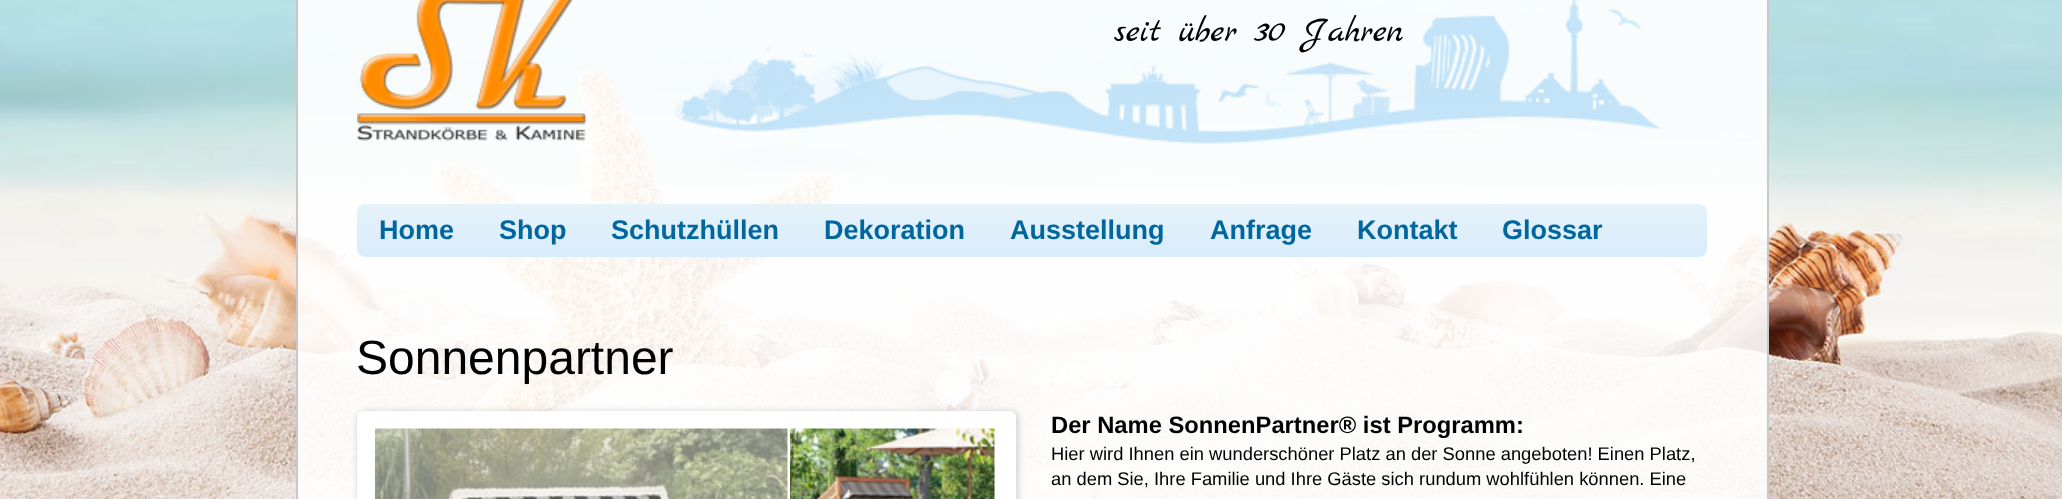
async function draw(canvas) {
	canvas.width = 2062;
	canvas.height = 499;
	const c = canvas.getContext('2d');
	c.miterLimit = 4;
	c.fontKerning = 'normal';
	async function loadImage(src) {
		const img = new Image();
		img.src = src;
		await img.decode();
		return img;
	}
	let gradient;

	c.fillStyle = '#fff';
	c.fillRect(0, 0, 2062, 499);
	c.drawImage(await loadImage('img1.png'), 0, 0, 2062, 499);
	c.fillStyle = '#ffffffe6';
	c.beginPath();
	c.rect(297, -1, 1471, 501);
	c.fill();
	c.strokeStyle = '#c8c8c8';
	c.lineWidth = 2;
	c.stroke();
	c.drawImage(await loadImage('img2.png'), 673, 0, 989, 144);
	c.drawImage(await loadImage('img3.png'), 357, 0, 230, 141);
	c.font = '36px Marck Script';
	c.fillStyle = '#000';
	c.fillText('seit über 30 Jahren', 1114, 41);
	gradient = c.createLinearGradient(1032, 204, 1032, 257);
	gradient.addColorStop(0, '#e6f2f9');
	gradient.addColorStop(1, '#d7ecfb');
	c.fillStyle = gradient;
	c.beginPath();
	c.roundRect(357, 204, 1350, 53, 8);
	c.fill();
	c.font = 'bold 27px Liberation Sans';
	c.fillStyle = '#00669e';
	for (const [text, x, y] of [
		['Home', 379, 239],
		['Shop', 499, 239],
		['Schutzhüllen', 611, 239],
		['Dekoration', 824, 239],
		['Ausstellung', 1010, 239],
		['Anfrage', 1210, 239],
		['Kontakt', 1357, 239],
		['Glossar', 1502, 239],
	]) {
		c.fillText(text, x, y);
	}
	c.font = '48px Liberation Sans';
	c.fillStyle = '#000';
	c.fillText('Sonnenpartner', 356, 374);
	c.fillStyle = '#00000026';
	c.filter = 'blur(3px)';
	c.beginPath();
	c.roundRect(357, 411, 662, 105, 8);
	c.fill();
	c.filter = 'none';
	c.fillStyle = '#fff';
	c.beginPath();
	c.roundRect(357, 411, 659, 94, 6);
	c.fill();
	c.drawImage(await loadImage('img5.png'), 789, 428, 206, 71);
	c.fillRect(789, 429, 1, 70);
	c.drawImage(await loadImage('img4.png'), 375, 428, 413, 71);
	c.font = 'bold 23.75px Liberation Sans';
	c.fillStyle = '#000';
	c.fillText('Der Name SonnenPartner® ist Programm:', 1051, 433);
	c.font = '18.35px Liberation Sans';
	c.fillText('Hier wird Ihnen ein wunderschöner Platz an der Sonne angeboten! Einen Platz,', 1051, 460);
	c.fillText('an dem Sie, Ihre Familie und Ihre Gäste sich rundum wohlfühlen können. Eine', 1051, 485);
}

draw(document.querySelector('canvas'));
